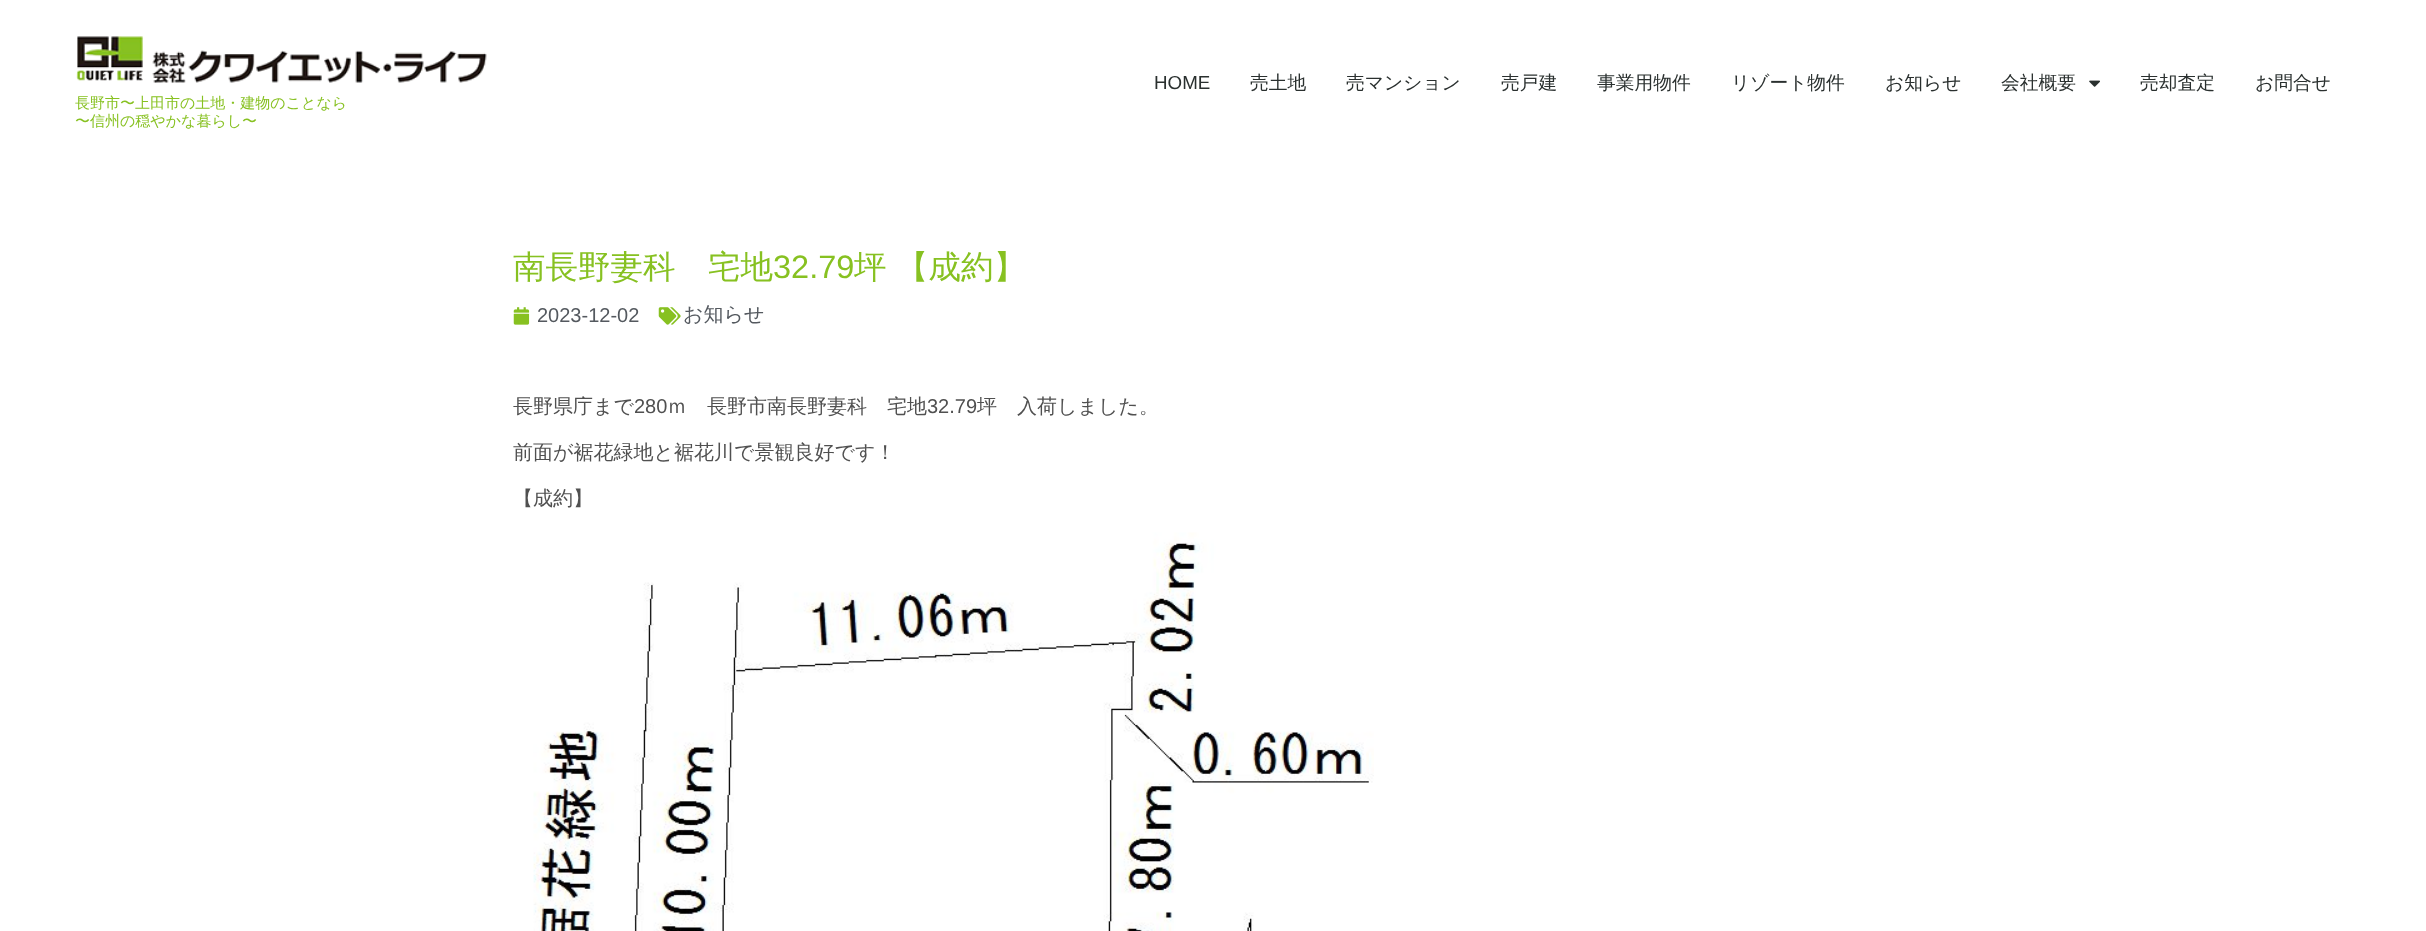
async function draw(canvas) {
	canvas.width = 2426;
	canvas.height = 931;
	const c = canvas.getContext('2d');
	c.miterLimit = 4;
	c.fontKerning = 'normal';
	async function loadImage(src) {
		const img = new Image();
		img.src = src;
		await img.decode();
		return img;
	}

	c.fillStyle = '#fff';
	c.fillRect(0, 0, 2426, 931);
	c.font = '18.75px Liberation Sans';
	c.fillStyle = '#2a302f';
	c.fillText('HOME', 1154, 89);
	c.font = '500 18.75px WenQuanYi Zen Hei';
	for (const [text, x, y] of [
		['売土地', 1250, 89],
		['売マンション', 1346, 89],
		['売戸建', 1501, 89],
		['事業用物件', 1597, 89],
		['リゾート物件', 1731, 89],
		['お知らせ', 1885, 89],
		['会社概要', 2001, 89],
	]) {
		c.fillText(text, x, y);
	}
	c.drawImage(await loadImage('img1.png'), 2089, 80, 11, 7);
	c.fillText('売却査定', 2140, 89);
	c.fillText('お問合せ', 2255, 89);
	c.drawImage(await loadImage('img2.png'), 76, 36, 411, 47);
	c.font = '500 15px WenQuanYi Zen Hei';
	c.fillStyle = '#87c121';
	c.fillText('長野市〜上田市の土地・建物のことなら', 75, 108);
	c.fillText('〜信州の穏やかな暮らし〜', 75, 126);
	c.font = '500 32.5px WenQuanYi Zen Hei';
	c.fillText('南長野妻科　宅地', 513, 278);
	c.font = '32.5px Liberation Sans';
	c.fillText('32.79', 773, 278);
	c.font = '500 32.5px WenQuanYi Zen Hei';
	c.fillText('坪', 854, 278);
	c.fillText('【成約】', 896, 278);
	c.drawImage(await loadImage('img3.png'), 513, 307, 17, 18);
	c.font = '20px Liberation Sans';
	c.fillStyle = '#54595f';
	c.fillText('2023-12-02', 537, 322);
	c.drawImage(await loadImage('img4.png'), 658, 307, 23, 18);
	c.font = '500 20px WenQuanYi Zen Hei';
	c.fillText('お知らせ', 683, 321);
	c.fillStyle = '#505050';
	c.fillText('長野県庁まで', 513, 413);
	c.font = '20px Liberation Sans';
	c.fillText('280', 634, 413);
	c.font = '500 20px WenQuanYi Zen Hei';
	c.fillText('ｍ　長野市南長野妻科　宅地', 667, 413);
	c.font = '20px Liberation Sans';
	c.fillText('32.79', 927, 413);
	c.font = '500 20px WenQuanYi Zen Hei';
	for (const [text, x, y] of [
		['坪　入荷しました。', 977, 413],
		['前面が裾花緑地と裾花川で景観良好です！', 513, 459],
		['【成約】', 513, 505],
	]) {
		c.fillText(text, x, y);
	}
	c.drawImage(await loadImage('img5.png'), 533, 532, 841, 399);
}

draw(document.querySelector('canvas'));
